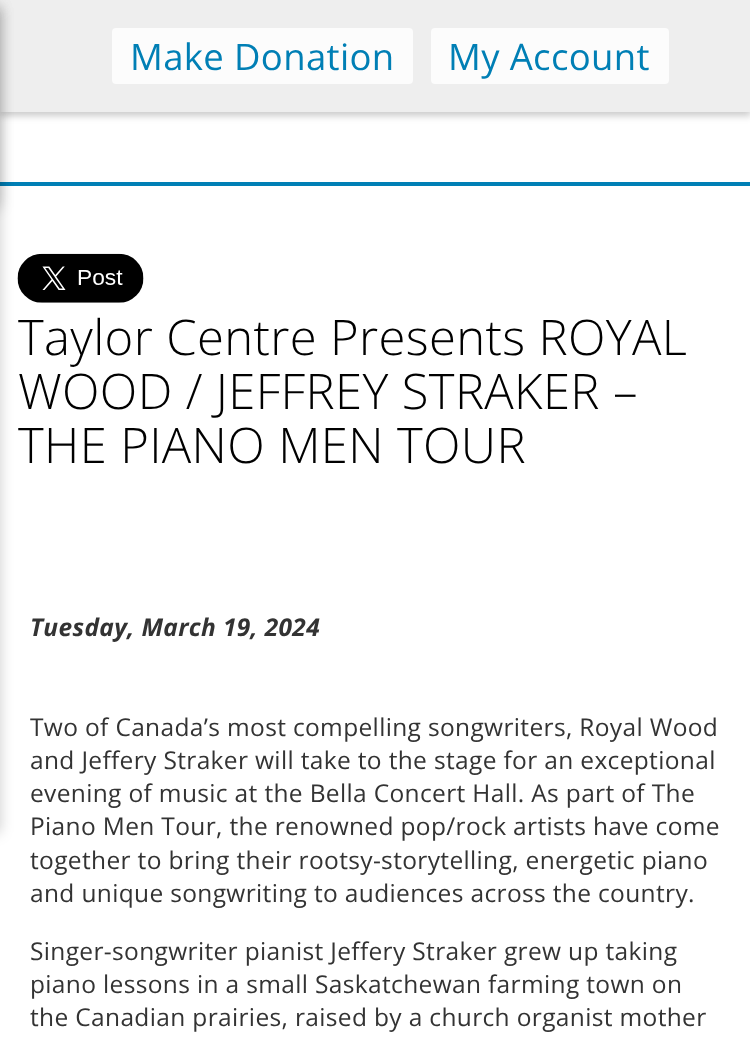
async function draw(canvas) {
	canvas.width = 750;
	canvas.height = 1047;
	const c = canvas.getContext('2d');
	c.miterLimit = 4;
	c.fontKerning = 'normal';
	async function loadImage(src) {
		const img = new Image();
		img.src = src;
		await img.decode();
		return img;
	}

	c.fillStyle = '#fff';
	c.fillRect(0, 0, 750, 1047);
	c.fillStyle = '#00000033';
	c.filter = 'blur(3.5px)';
	c.beginPath();
	c.rect(0, 4, 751, 112);
	c.fill();
	c.filter = 'none';
	c.fillStyle = '#eee';
	c.fillRect(0, 0, 750, 112);
	c.fillStyle = '#fcfcfc';
	c.beginPath();
	c.roundRect(112, 28, 301, 56, 4);
	c.fill();
	c.letterSpacing = '0.35px';
	c.font = '36.5px Open Sans';
	c.fillStyle = '#007fb5';
	c.fillText('Make Donation', 130, 70);
	c.fillStyle = '#fcfcfc';
	c.beginPath();
	c.roundRect(431, 28, 238, 56, 4);
	c.fill();
	c.fillStyle = '#007fb5';
	c.fillText('My Account', 448, 70);
	c.fillRect(0, 182, 750, 4);
	c.fillStyle = '#00000033';
	c.filter = 'blur(7px)';
	c.beginPath();
	c.roundRect(-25, 7, 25, 201, 4);
	c.fill();
	c.filter = 'none';
	c.drawImage(await loadImage('img1.png'), 17, 253, 127, 50);
	c.filter = 'blur(7px)';
	c.beginPath();
	c.roundRect(-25, 7, 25, 826, 4);
	c.fill();
	c.filter = 'none';
	c.font = '300 49px Open Sans';
	c.fillStyle = '#000';
	for (const [text, x, y] of [
		['Taylor Centre Presents ROYAL', 18, 355],
		['WOOD / JEFFREY STRAKER –', 18, 409],
		['THE PIANO MEN TOUR', 18, 463],
	]) {
		c.fillText(text, x, y);
	}
	c.font = 'italic bold 24.5px Open Sans';
	c.fillStyle = '#333';
	c.fillText('Tuesday, March 19, 2024', 30, 636);
	c.font = '24.5px Open Sans';
	for (const [text, x, y] of [
		['Two of Canada’s most compelling songwriters, Royal Wood', 30, 736],
		['and Jeffery Straker will take to the stage for an exceptional', 30, 769],
		['evening of music at the Bella Concert Hall. As part of The', 30, 802],
		['Piano Men Tour, the renowned pop/rock artists have come', 30, 835],
		['together to bring their rootsy-storytelling, energetic piano', 30, 869],
		['and unique songwriting to audiences across the country.', 30, 902],
		['Singer-songwriter pianist Jeffery Straker grew up taking', 30, 960],
		['piano lessons in a small Saskatchewan farming town on', 30, 993],
		['the Canadian prairies, raised by a church organist mother', 30, 1026],
	]) {
		c.fillText(text, x, y);
	}
}

draw(document.querySelector('canvas'));
